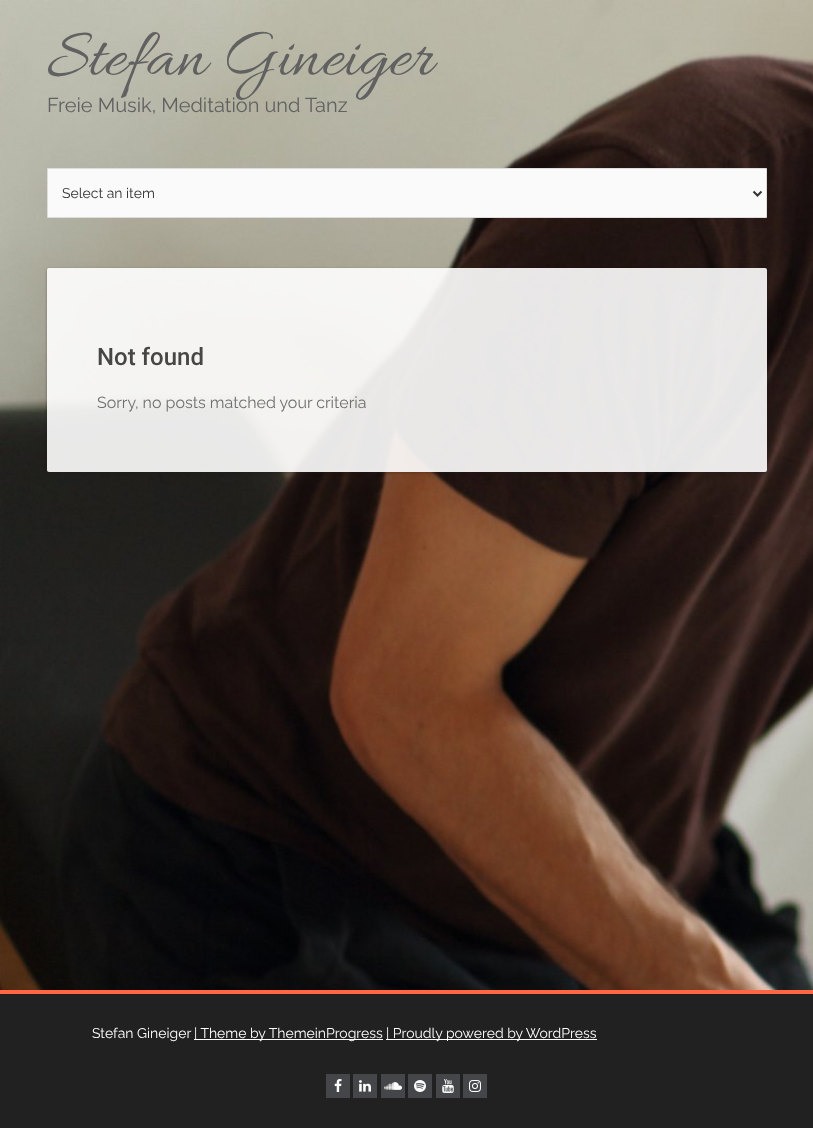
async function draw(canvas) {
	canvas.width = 813;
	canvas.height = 1128;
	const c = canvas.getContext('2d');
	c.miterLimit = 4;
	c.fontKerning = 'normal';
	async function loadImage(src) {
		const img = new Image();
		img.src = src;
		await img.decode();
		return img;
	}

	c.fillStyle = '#fff';
	c.fillRect(0, 0, 813, 1128);
	c.drawImage(await loadImage('img1.png'), 0, 0, 813, 990);
	c.font = '70px Allura';
	c.fillStyle = '#616161';
	c.fillText('Stefan Gineiger', 47, 74);
	c.font = '20px Raleway';
	c.fillText('Freie Musik, Meditation und Tanz', 47, 112);
	c.fillStyle = '#fafafa';
	c.beginPath();
	c.rect(47.5, 168.5, 719, 49);
	c.fill();
	c.strokeStyle = '#ddd';
	c.stroke();
	c.beginPath();
	c.moveTo(753.5, 191.5);
	c.lineTo(757.5, 195.5);
	c.lineTo(761.5, 191.5);
	c.strokeStyle = '#333';
	c.lineWidth = 2;
	c.stroke();
	c.font = '14px Raleway';
	c.fillStyle = '#333';
	c.fillText('Select an item', 62, 198);
	c.save();
	c.beginPath();
	c.moveTo(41, 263);
	c.lineTo(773, 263);
	c.lineTo(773, 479);
	c.lineTo(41, 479);
	c.closePath();
	c.moveTo(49, 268);
	c.lineTo(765, 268);
	c.bezierCurveTo(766, 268, 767, 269, 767, 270);
	c.lineTo(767, 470);
	c.bezierCurveTo(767, 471, 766, 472, 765, 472);
	c.lineTo(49, 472);
	c.bezierCurveTo(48, 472, 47, 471, 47, 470);
	c.lineTo(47, 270);
	c.bezierCurveTo(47, 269, 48, 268, 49, 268);
	c.closePath();
	c.clip('evenodd');
	c.fillStyle = '#2219195c';
	c.filter = 'blur(1.5px)';
	c.beginPath();
	c.roundRect(47, 269, 720, 204, 2);
	c.fill();
	c.filter = 'none';
	c.restore();
	c.fillStyle = '#ffffffe6';
	c.beginPath();
	c.roundRect(47, 268, 720, 204, 2);
	c.fill();
	c.font = '500 24px Roboto';
	c.fillStyle = '#464646';
	c.fillText('Not found', 97, 365);
	c.font = '16px Raleway';
	c.fillStyle = '#6f6f6f';
	c.fillText('Sorry, no posts matched your criteria', 97, 408);
	c.fillStyle = '#212121';
	c.fillRect(0, 994, 813, 134);
	c.fillStyle = '#f64';
	c.fillRect(0, 990, 813, 4);
	c.font = '14px Raleway';
	c.fillStyle = '#fff';
	c.fillText('Stefan Gineiger', 92, 1038);
	c.fillRect(194, 1039, 189, 1);
	c.fillText('| Theme by ThemeinProgress', 194, 1038);
	c.fillRect(386, 1039, 211, 1);
	c.fillText('| Proudly powered by WordPress', 386, 1038);
	c.fillStyle = '#444649';
	c.fillRect(326, 1074, 24, 24);
	c.drawImage(await loadImage('img2.png'), 334, 1079, 8, 13);
	c.fillRect(353, 1074, 24, 24);
	c.drawImage(await loadImage('img3.png'), 359, 1080, 12, 12);
	c.fillRect(381, 1074, 24, 24);
	c.drawImage(await loadImage('img4.png'), 384, 1082, 18, 8);
	c.fillRect(408, 1074, 24, 24);
	c.drawImage(await loadImage('img5.png'), 414, 1080, 12, 12);
	c.fillRect(436, 1074, 24, 24);
	c.drawImage(await loadImage('img6.png'), 442, 1079, 12, 14);
	c.fillRect(463, 1074, 24, 24);
	c.drawImage(await loadImage('img7.png'), 469, 1080, 12, 12);
}

draw(document.querySelector('canvas'));
